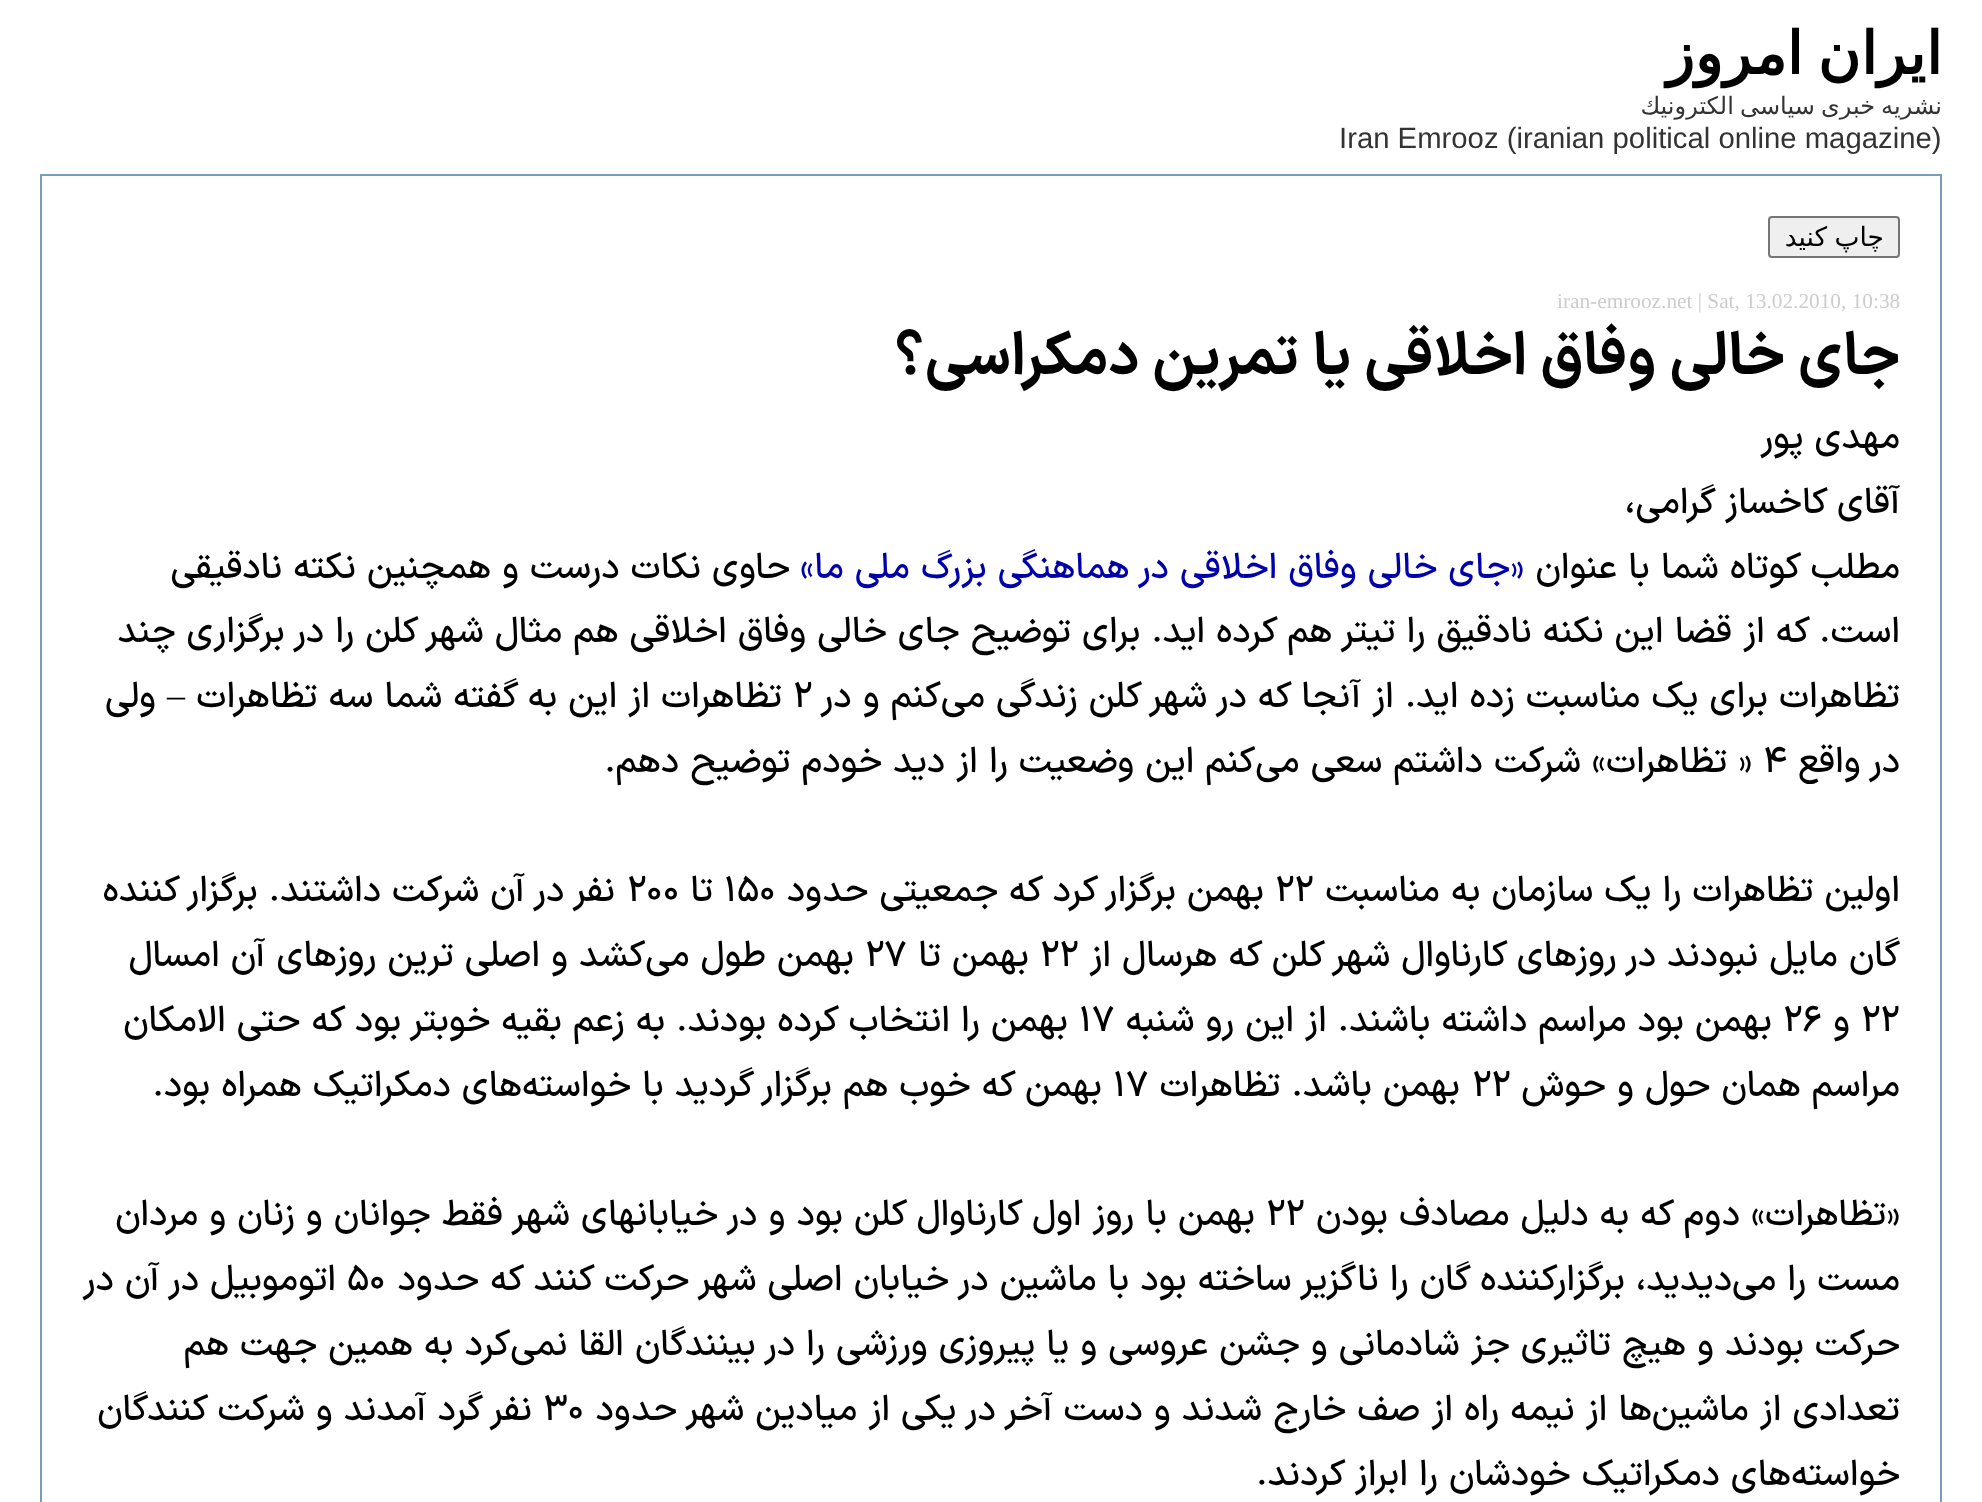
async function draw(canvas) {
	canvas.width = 1982;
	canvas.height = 1502;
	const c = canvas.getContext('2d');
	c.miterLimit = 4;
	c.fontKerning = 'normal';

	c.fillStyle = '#fff';
	c.fillRect(0, 0, 1982, 1502);
	c.wordSpacing = '-4px';
	c.direction = 'rtl';
	c.font = 'bold 58.7px DejaVu Sans';
	c.fillStyle = '#000';
	c.fillText('ايران امروز', 1942, 74);
	c.wordSpacing = '-1.5px';
	c.font = '24px DejaVu Sans';
	c.fillStyle = '#333';
	c.fillText('نشريه خبری سياسی الكترونيك', 1942, 114);
	c.wordSpacing = '0px';
	c.direction = 'ltr';
	c.font = '29.3px Liberation Sans';
	c.fillText('Iran Emrooz (iranian political online magazine)', 1339, 148);
	c.strokeStyle = '#799eb8';
	c.lineWidth = 2;
	c.strokeRect(41, 175, 1900, 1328);
	c.fillStyle = '#efefef';
	c.beginPath();
	c.roundRect(1769, 217, 130, 40, 3);
	c.fill();
	c.strokeStyle = '#767676';
	c.stroke();
	c.wordSpacing = '-1px';
	c.direction = 'rtl';
	c.font = '26.5px DejaVu Sans';
	c.fillStyle = '#000';
	c.fillText('چاپ کنید', 1884, 246);
	c.wordSpacing = '0px';
	c.direction = 'ltr';
	c.font = '21.3px Liberation Serif';
	c.fillStyle = '#ccc';
	c.fillText('iran-emrooz.net | Sat, 13.02.2010, 10:38', 1557, 308);
	c.direction = 'rtl';
	c.font = 'bold 58.7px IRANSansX';
	c.fillStyle = '#000';
	c.fillText('جای خالی وفاق اخلاقی یا تمرین دمکراسی؟', 1900, 374);
	c.font = '500 36px IRANSansX';
	for (const [text, x, y] of [
		['مهدی پور', 1900, 448],
		['آقای کاخساز گرامی،', 1900, 513],
		['مطلب کوتاه شما با عنوان', 1900, 578],
	]) {
		c.fillText(text, x, y);
	}
	c.fillStyle = '#00a';
	c.fillText('«جای خالی وفاق اخلاقی در هماهنگی بزرگ ملی ما»', 1524, 578);
	c.fillStyle = '#000';
	for (const [text, x, y] of [
		['حاوی نکات درست و همچنین نکته نادقیقی', 790, 578],
		['است. که از قضا این نکنه نادقیق را تیتر هم کرده اید. برای توضیح جای خالی وفاق اخلاقی هم مثال شهر کلن را در برگزاری چند', 1900, 642],
		['تظاهرات برای یک مناسبت زده اید. از آنجا که در شهر کلن زندگی می‌کنم و در', 1900, 707],
	]) {
		c.fillText(text, x, y);
	}
	c.direction = 'ltr';
	c.fillText('۲', 793, 707);
	c.direction = 'rtl';
	c.fillText('تظاهرات از این به گفته شما سه تظاهرات', 782, 707);
	c.font = '36px Liberation Serif';
	c.fillText('–', 185, 707);
	c.font = '500 36px IRANSansX';
	c.fillText('ولی', 156, 707);
	c.fillText('در واقع', 1900, 772);
	c.direction = 'ltr';
	c.fillText('۴', 1763, 772);
	c.direction = 'rtl';
	c.fillText('« تظاهرات» شرکت داشتم سعی می‌کنم این وضعیت را از دید خودم توضیح دهم.', 1752, 772);
	c.fillText('اولین تظاهرات را یک سازمان به مناسبت', 1900, 901);
	c.direction = 'ltr';
	c.fillText('۲۲', 1275, 901);
	c.direction = 'rtl';
	c.fillText('بهمن برگزار کرد که جمعیتی حدود', 1264, 901);
	c.direction = 'ltr';
	c.fillText('۱۵۰', 724, 901);
	c.direction = 'rtl';
	c.fillText('تا', 713, 901);
	c.direction = 'ltr';
	c.fillText('۲۰۰', 627, 901);
	c.direction = 'rtl';
	c.fillText('نفر در آن شرکت داشتند. برگزار کننده', 615, 901);
	c.fillText('گان مایل نبودند در روزهای کارناوال شهر کلن که هرسال از', 1900, 966);
	c.direction = 'ltr';
	c.fillText('۲۲', 1040, 966);
	c.direction = 'rtl';
	c.fillText('بهمن تا', 1029, 966);
	c.direction = 'ltr';
	c.fillText('۲۷', 865, 966);
	c.direction = 'rtl';
	c.fillText('بهمن طول می‌کشد و اصلی ترین روزهای آن امسال', 854, 966);
	c.direction = 'ltr';
	c.fillText('۲۲', 1861, 1031);
	c.direction = 'rtl';
	c.fillText('و', 1850, 1031);
	c.direction = 'ltr';
	c.fillText('۲۶', 1783, 1031);
	c.direction = 'rtl';
	c.fillText('بهمن بود مراسم داشته باشند. از این رو شنبه', 1772, 1031);
	c.direction = 'ltr';
	c.fillText('۱۷', 1079, 1031);
	c.direction = 'rtl';
	c.fillText('بهمن را انتخاب کرده بودند. به زعم بقیه خوبتر بود که حتی الامکان', 1068, 1031);
	c.fillText('مراسم همان حول و حوش', 1900, 1096);
	c.direction = 'ltr';
	c.fillText('۲۲', 1472, 1096);
	c.direction = 'rtl';
	c.fillText('بهمن باشد. تظاهرات', 1460, 1096);
	c.direction = 'ltr';
	c.fillText('۱۷', 1113, 1096);
	c.direction = 'rtl';
	c.fillText('بهمن که خوب هم برگزار گردید با خواسته‌های دمکراتیک همراه بود.', 1102, 1096);
	c.fillText('«تظاهرات» دوم که به دلیل مصادف بودن', 1900, 1225);
	c.direction = 'ltr';
	c.fillText('۲۲', 1266, 1225);
	c.direction = 'rtl';
	c.fillText('بهمن با روز اول کارناوال کلن بود و در خیابانهای شهر فقط جوانان و زنان و مردان', 1255, 1225);
	c.fillText('مست را می‌دیدید، برگزارکننده گان را ناگزیر ساخته بود با ماشین در خیابان اصلی شهر حرکت کنند که حدود', 1900, 1290);
	c.direction = 'ltr';
	c.fillText('۵۰', 347, 1290);
	c.direction = 'rtl';
	for (const [text, x, y] of [
		['اتوموبیل در آن در', 336, 1290],
		['حرکت بودند و هیچ تاثیری جز شادمانی و جشن عروسی و یا پیروزی ورزشی را در بینندگان القا نمی‌کرد به همین جهت هم', 1900, 1355],
		['تعدادی از ماشین‌ها از نیمه راه از صف خارج شدند و دست آخر در یکی از میادین شهر حدود', 1900, 1420],
	]) {
		c.fillText(text, x, y);
	}
	c.direction = 'ltr';
	c.fillText('۳۰', 543, 1420);
	c.direction = 'rtl';
	c.fillText('نفر گرد آمدند و شرکت کنندگان', 532, 1420);
	c.fillText('خواسته‌های دمکراتیک خودشان را ابراز کردند.', 1900, 1485);
}

draw(document.querySelector('canvas'));
